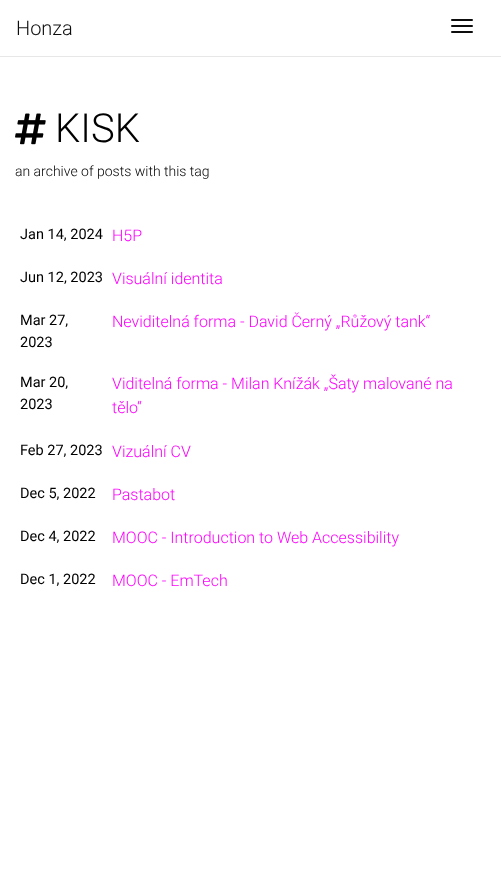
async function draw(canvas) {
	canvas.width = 501;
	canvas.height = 891;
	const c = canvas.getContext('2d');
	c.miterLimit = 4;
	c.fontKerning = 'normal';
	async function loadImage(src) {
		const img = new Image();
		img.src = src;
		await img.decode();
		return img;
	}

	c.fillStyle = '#fff';
	c.fillRect(0, 0, 501, 891);
	c.fillStyle = '#e7e7e7';
	c.fillRect(0, 56, 501, 1);
	c.font = '300 20px Roboto';
	c.fillStyle = '#0d0d0d';
	c.fillText('Honza', 16, 35);
	c.beginPath();
	c.roundRect(451, 19, 22, 2, 1);
	c.fill();
	c.beginPath();
	c.roundRect(451, 25, 22, 2, 1);
	c.fill();
	c.beginPath();
	c.roundRect(451, 31, 22, 2, 1);
	c.fill();
	c.drawImage(await loadImage('img1.png'), 15, 113, 31, 32);
	c.font = '300 40px Roboto';
	c.fillStyle = '#000';
	c.fillText('KISK', 55, 142);
	c.font = '300 14px Roboto';
	c.fillText('an archive of posts with this tag', 15, 176);
	c.font = '14.5px Roboto';
	c.fillText('Jan 14, 2024', 20, 239);
	c.font = '300 16px Roboto';
	c.fillStyle = '#f0f';
	c.fillText('H5P', 112, 241);
	c.font = '14.5px Roboto';
	c.fillStyle = '#000';
	c.fillText('Jun 12, 2023', 20, 282);
	c.font = '300 16px Roboto';
	c.fillStyle = '#f0f';
	c.fillText('Visuální identita', 112, 284);
	c.font = '14.5px Roboto';
	c.fillStyle = '#000';
	c.fillText('Mar 27,', 20, 325);
	c.fillText('2023', 20, 347);
	c.font = '300 16px Roboto';
	c.fillStyle = '#f0f';
	c.fillText('Neviditelná forma - David Černý „Růžový tank“', 112, 327);
	c.font = '14.5px Roboto';
	c.fillStyle = '#000';
	c.fillText('Mar 20,', 20, 387);
	c.fillText('2023', 20, 409);
	c.font = '300 16px Roboto';
	c.fillStyle = '#f0f';
	c.fillText('Viditelná forma - Milan Knížák „Šaty malované na', 112, 389);
	c.fillText('tělo“', 112, 413);
	c.font = '14.5px Roboto';
	c.fillStyle = '#000';
	c.fillText('Feb 27, 2023', 20, 455);
	c.font = '300 16px Roboto';
	c.fillStyle = '#f0f';
	c.fillText('Vizuální CV', 112, 457);
	c.font = '14.5px Roboto';
	c.fillStyle = '#000';
	c.fillText('Dec 5, 2022', 20, 498);
	c.font = '300 16px Roboto';
	c.fillStyle = '#f0f';
	c.fillText('Pastabot', 112, 500);
	c.font = '14.5px Roboto';
	c.fillStyle = '#000';
	c.fillText('Dec 4, 2022', 20, 541);
	c.font = '300 16px Roboto';
	c.fillStyle = '#f0f';
	c.fillText('MOOC - Introduction to Web Accessibility', 112, 543);
	c.font = '14.5px Roboto';
	c.fillStyle = '#000';
	c.fillText('Dec 1, 2022', 20, 584);
	c.font = '300 16px Roboto';
	c.fillStyle = '#f0f';
	c.fillText('MOOC - EmTech', 112, 586);
}

draw(document.querySelector('canvas'));
